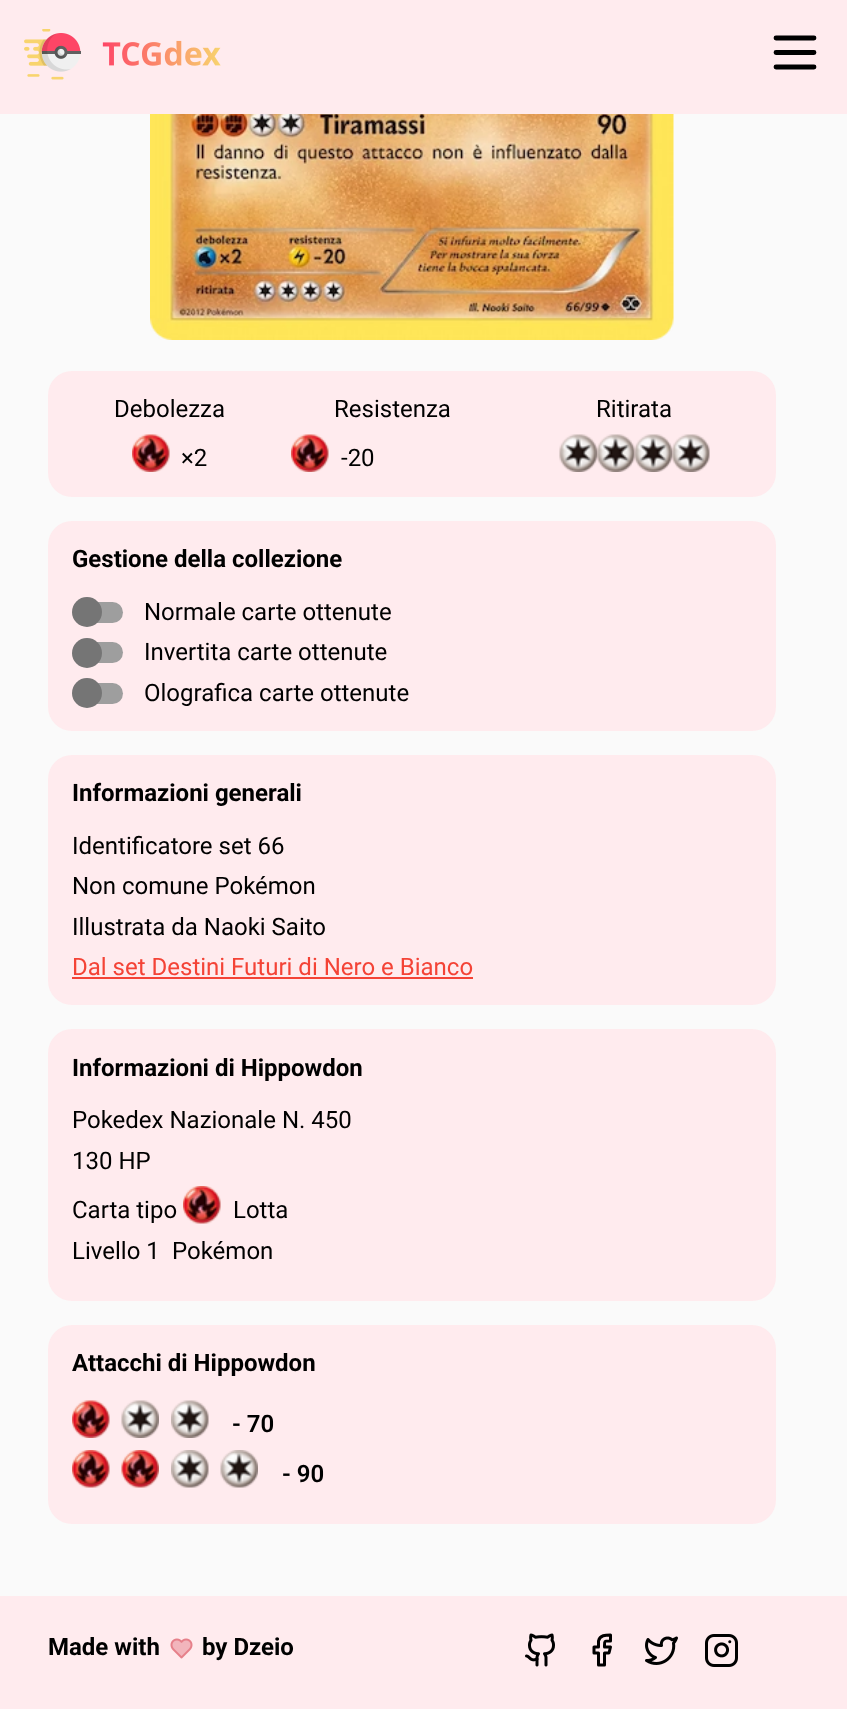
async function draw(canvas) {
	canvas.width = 847;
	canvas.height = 1709;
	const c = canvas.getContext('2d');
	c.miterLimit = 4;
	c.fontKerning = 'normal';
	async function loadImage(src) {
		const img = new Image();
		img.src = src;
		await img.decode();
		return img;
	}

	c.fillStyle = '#fafafa';
	c.fillRect(0, 0, 847, 1709);
	c.fillStyle = '#ffebee';
	c.fillRect(0, 0, 847, 114);
	c.drawImage(await loadImage('img1.png'), 24, 29, 197, 51);
	c.beginPath();
	c.moveTo(776, 52.5);
	c.lineTo(814, 52.5);
	c.moveTo(776, 38);
	c.lineTo(814, 38);
	c.moveTo(776, 67);
	c.lineTo(814, 67);
	c.strokeStyle = '#000';
	c.lineWidth = 4.8;
	c.lineCap = 'round';
	c.lineJoin = 'round';
	c.stroke();
	c.drawImage(await loadImage('img2.png'), 150, 114, 524, 226);
	c.beginPath();
	c.roundRect(48, 371, 728, 126, 24);
	c.fill();
	c.font = '24px Roboto';
	c.fillStyle = '#000';
	c.fillText('Debolezza', 114, 417);
	c.drawImage(await loadImage('img3.png'), 132, 434, 38, 38);
	c.fillText('×2', 181, 466);
	c.fillText('Resistenza', 334, 417);
	c.drawImage(await loadImage('img4.png'), 291, 434, 38, 38);
	c.fillText('-20', 341, 466);
	c.fillText('Ritirata', 596, 417);
	c.drawImage(await loadImage('img5.png'), 559, 434, 38, 38);
	c.drawImage(await loadImage('img6.png'), 597, 434, 38, 38);
	c.drawImage(await loadImage('img7.png'), 634, 434, 38, 38);
	c.drawImage(await loadImage('img8.png'), 672, 434, 38, 38);
	c.fillStyle = '#ffebee';
	c.beginPath();
	c.roundRect(48, 521, 728, 210, 24);
	c.fill();
	c.font = 'bold 24px Roboto';
	c.fillStyle = '#000';
	c.fillText('Gestione della collezione', 72, 567);
	c.fillStyle = '#9e9e9e';
	c.beginPath();
	c.roundRect(87, 602, 36, 21, 10.5);
	c.fill();
	c.fillStyle = '#757575';
	c.beginPath();
	c.arc(87, 612, 15, 0, 2 * Math.PI);
	c.fill();
	c.font = '24px Roboto';
	c.fillStyle = '#000';
	c.fillText('Normale carte ottenute', 144, 620);
	c.fillStyle = '#9e9e9e';
	c.beginPath();
	c.roundRect(87, 642, 36, 21, 10.5);
	c.fill();
	c.fillStyle = '#757575';
	c.beginPath();
	c.arc(87, 653, 15, 0, 2 * Math.PI);
	c.fill();
	c.fillStyle = '#000';
	c.fillText('Invertita carte ottenute', 144, 660);
	c.fillStyle = '#9e9e9e';
	c.beginPath();
	c.roundRect(87, 683, 36, 21, 10.5);
	c.fill();
	c.fillStyle = '#757575';
	c.beginPath();
	c.arc(87, 693, 15, 0, 2 * Math.PI);
	c.fill();
	c.fillStyle = '#000';
	c.fillText('Olografica carte ottenute', 144, 701);
	c.fillStyle = '#ffebee';
	c.beginPath();
	c.roundRect(48, 755, 728, 250, 24);
	c.fill();
	c.font = 'bold 24px Roboto';
	c.fillStyle = '#000';
	c.fillText('Informazioni generali', 72, 801);
	c.font = '24px Roboto';
	for (const [text, x, y] of [
		['Identificatore set 66', 72, 854],
		['Non comune Pokémon', 72, 894],
		['Illustrata da Naoki Saito', 72, 935],
	]) {
		c.fillText(text, x, y);
	}
	c.fillStyle = '#f44336';
	c.fillText('Dal set Destini Futuri di Nero e Bianco', 72, 975);
	c.fillRect(72, 977, 401, 2);
	c.fillStyle = '#ffebee';
	c.beginPath();
	c.roundRect(48, 1029, 728, 272, 24);
	c.fill();
	c.font = 'bold 24px Roboto';
	c.fillStyle = '#000';
	c.fillText('Informazioni di Hippowdon', 72, 1076);
	c.font = '24px Roboto';
	for (const [text, x, y] of [
		['Pokedex Nazionale N. 450', 72, 1128],
		['130 HP', 72, 1169],
		['Carta tipo', 72, 1218],
	]) {
		c.fillText(text, x, y);
	}
	c.drawImage(await loadImage('img9.png'), 183, 1186, 38, 38);
	for (const [text, x, y] of [
		['Lotta', 233, 1218],
		['Livello 1', 72, 1259],
		['Pokémon', 172, 1259],
	]) {
		c.fillText(text, x, y);
	}
	c.fillStyle = '#ffebee';
	c.beginPath();
	c.roundRect(48, 1325, 728, 199, 24);
	c.fill();
	c.font = 'bold 24px Roboto';
	c.fillStyle = '#000';
	c.fillText('Attacchi di Hippowdon', 72, 1371);
	c.drawImage(await loadImage('img3.png'), 72, 1400, 38, 38);
	c.drawImage(await loadImage('img10.png'), 121, 1400, 38, 38);
	c.drawImage(await loadImage('img8.png'), 171, 1400, 38, 38);
	c.font = '600 24px Roboto';
	c.fillText('- 70', 232, 1432);
	c.drawImage(await loadImage('img9.png'), 72, 1450, 38, 38);
	c.drawImage(await loadImage('img11.png'), 121, 1450, 38, 38);
	c.drawImage(await loadImage('img12.png'), 171, 1450, 38, 38);
	c.drawImage(await loadImage('img13.png'), 220, 1450, 38, 38);
	c.fillText('- 90', 282, 1482);
	c.fillStyle = '#ffebee';
	c.fillRect(0, 1596, 847, 113);
	c.font = 'bold 24px Roboto';
	c.fillStyle = '#000';
	c.fillText('Made with', 48, 1655);
	c.drawImage(await loadImage('img14.png'), 170, 1638, 23, 21);
	c.fillText('by Dzeio', 202, 1655);
	c.drawImage(await loadImage('img15.png'), 525, 1633, 30, 34);
	c.beginPath();
	c.moveTo(610.5, 1635);
	c.bezierCurveTo(605.5, 1635, 600, 1635, 598.5, 1641);
	c.lineTo(598.5, 1647);
	c.lineTo(594, 1647);
	c.lineTo(594, 1653);
	c.lineTo(598.5, 1653);
	c.lineTo(598.5, 1665);
	c.lineTo(604.5, 1665);
	c.lineTo(604.5, 1653);
	c.lineTo(609, 1653);
	c.lineTo(610.5, 1647);
	c.lineTo(604.5, 1647);
	c.bezierCurveTo(604.5, 1640.5, 604, 1641, 610.5, 1641);
	c.closePath();
	c.lineWidth = 3;
	c.stroke();
	c.drawImage(await loadImage('img16.png'), 645, 1636, 33, 29);
	c.drawImage(await loadImage('img17.png'), 705, 1634, 33, 33);
}

draw(document.querySelector('canvas'));
